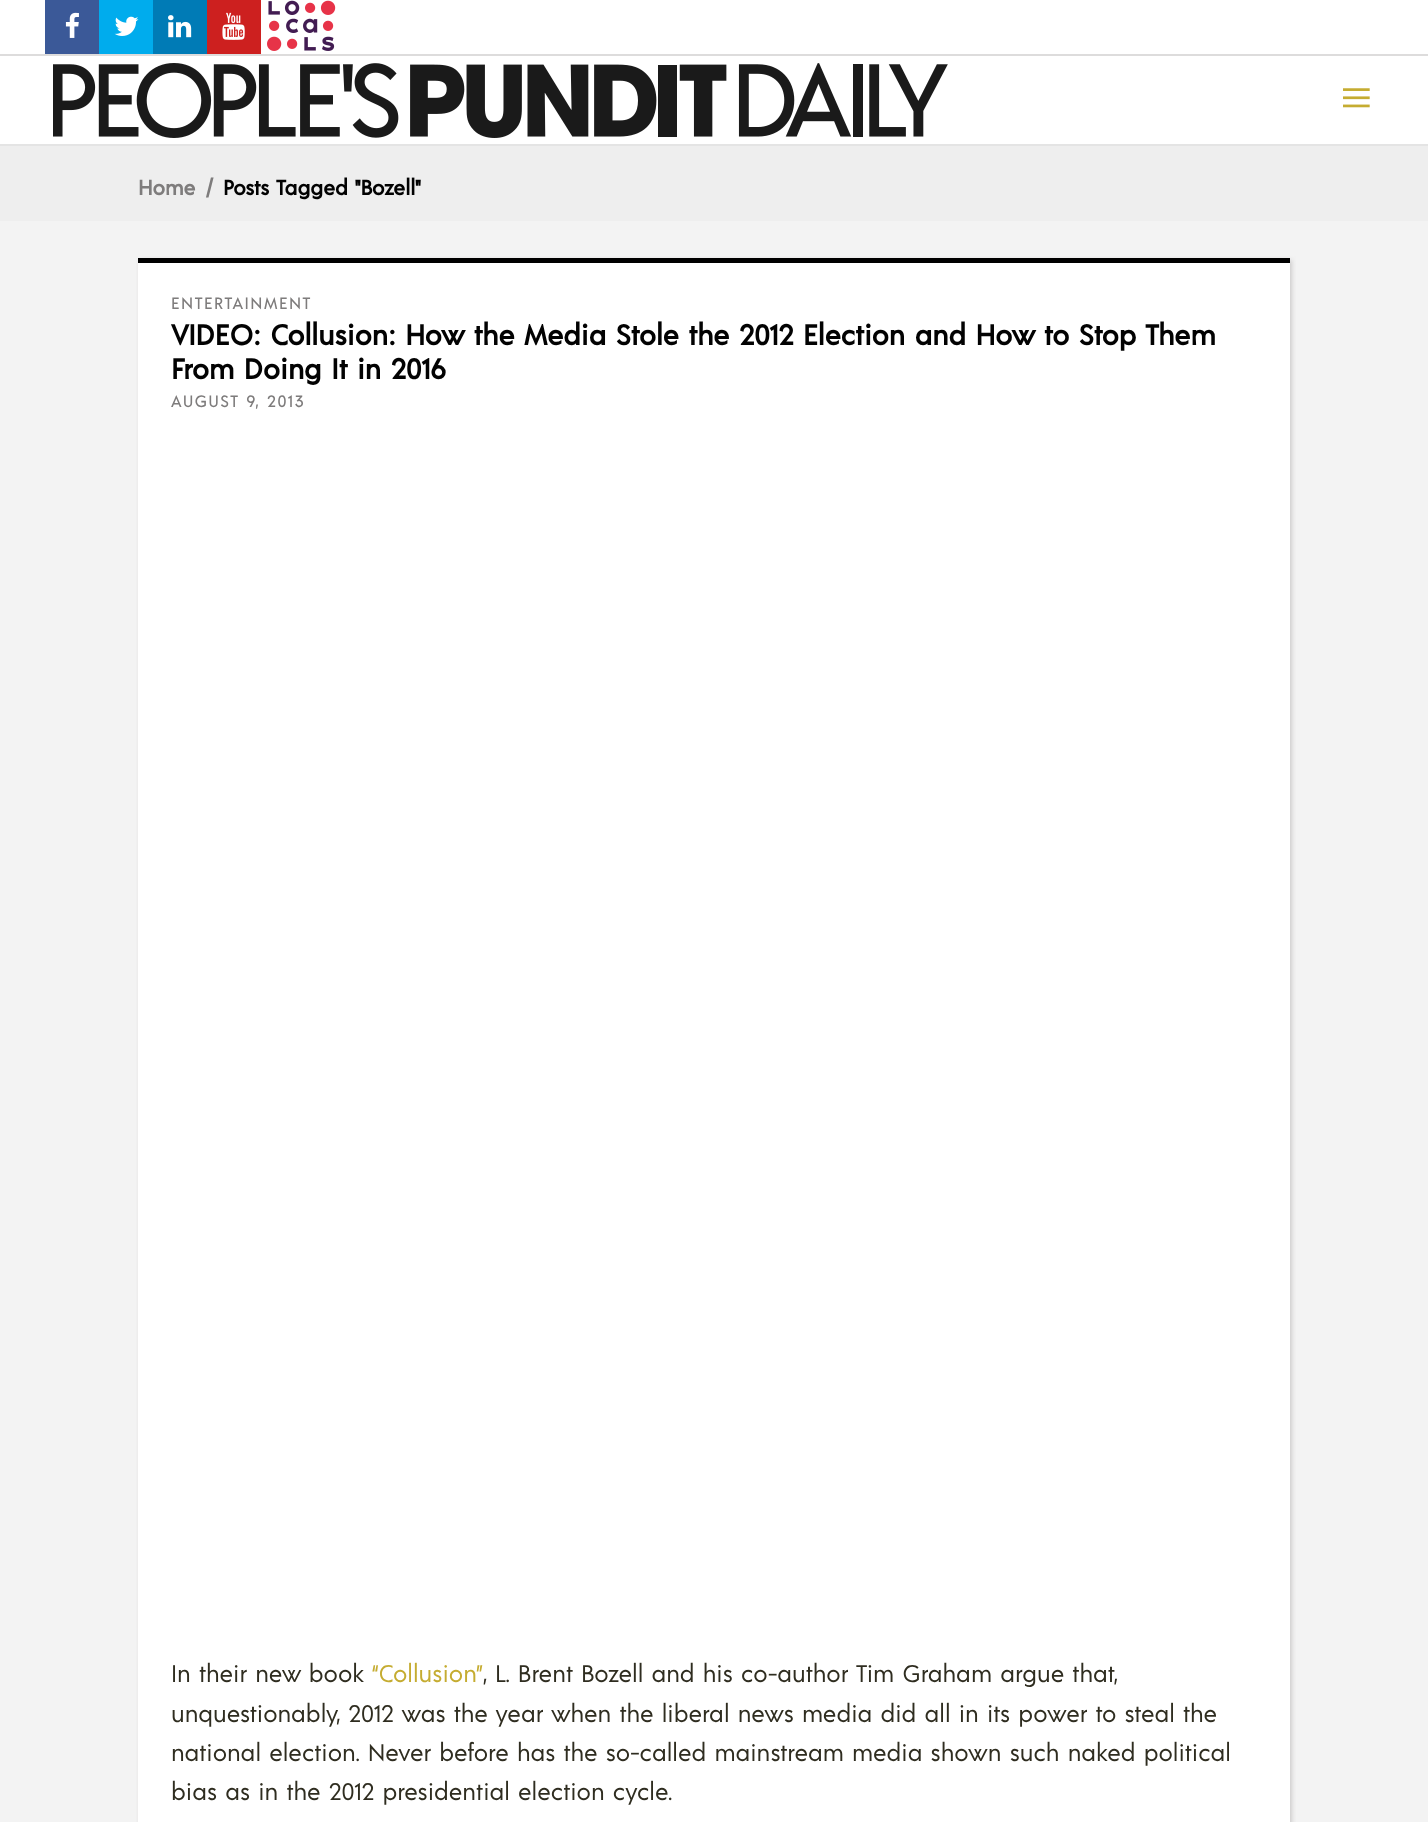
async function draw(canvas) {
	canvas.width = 1428;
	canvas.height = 1822;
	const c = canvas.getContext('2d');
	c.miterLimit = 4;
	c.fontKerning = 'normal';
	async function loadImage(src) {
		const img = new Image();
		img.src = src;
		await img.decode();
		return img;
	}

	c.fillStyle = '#f3f3f3';
	c.fillRect(0, 0, 1428, 1822);
	for (const [x, y, w, h, color] of [
		[0, 0, 1428, 54, '#fff'],
		[0, 54, 1428, 2, '#dddcdc'],
		[45, 0, 54, 54, '#3b5998'],
	]) {
		c.fillStyle = color;
		c.fillRect(x, y, w, h);
	}
	c.drawImage(await loadImage('img1.png'), 65, 12, 14, 26);
	c.fillStyle = '#00aced';
	c.fillRect(99, 0, 54, 54);
	c.drawImage(await loadImage('img2.png'), 114, 16, 25, 20);
	c.fillStyle = '#007bb6';
	c.fillRect(153, 0, 54, 54);
	c.drawImage(await loadImage('img3.png'), 168, 15, 24, 23);
	c.fillStyle = '#cd201f';
	c.fillRect(207, 0, 54, 54);
	c.drawImage(await loadImage('img4.png'), 222, 12, 23, 28);
	c.drawImage(await loadImage('img5.png'), 267, 0, 69, 51);
	c.fillStyle = '#fff';
	c.fillRect(0, 56, 1428, 88);
	c.fillStyle = '#e4e4e4';
	c.fillRect(0, 144, 1428, 2);
	c.drawImage(await loadImage('img6.png'), 53, 63, 895, 75);
	c.drawImage(await loadImage('img7.png'), 1343, 88, 27, 20);
	c.fillStyle = '#eee';
	c.fillRect(0, 146, 1428, 75);
	c.font = 'bold 21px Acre';
	c.fillStyle = '#7e7c7c';
	c.fillText('Home', 138, 195);
	c.fillText('/', 206, 195);
	c.fillStyle = '#020202';
	c.fillText('Posts Tagged "Bozell"', 223, 195);
	c.fillStyle = '#cecccc';
	c.filter = 'blur(2px)';
	c.beginPath();
	c.rect(140, 260, 1152, 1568);
	c.fill();
	c.filter = 'none';
	c.fillStyle = '#fff';
	c.fillRect(138, 263, 1152, 1559);
	c.fillStyle = '#000';
	c.fillRect(138, 258, 1152, 5);
	c.letterSpacing = '1.5px';
	c.font = '500 16.5px Acre';
	c.fillStyle = '#7e7c7c';
	c.fillText('ENTERTAINMENT', 171, 309);
	c.letterSpacing = '0px';
	c.font = 'bold 28.5px Acre';
	c.fillStyle = '#020202';
	c.fillText('VIDEO: Collusion: How the Media Stole the 2012 Election and How to Stop Them', 171, 345);
	c.fillText('From Doing It in 2016', 171, 379);
	c.letterSpacing = '1.5px';
	c.font = '500 16.5px Acre';
	c.fillStyle = '#7e7c7c';
	c.fillText('AUGUST 9, 2013', 171, 407);
	c.letterSpacing = '0px';
	c.font = '24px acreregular';
	c.fillStyle = '#2f2d20';
	c.fillText('In their new book', 171, 1682);
	c.fillStyle = '#c5ac31';
	c.fillText('“Collusion”', 372, 1682);
	c.fillStyle = '#2f2d20';
	for (const [text, x, y] of [
		[', L. Brent Bozell and his co-author Tim Graham argue that,', 483, 1682],
		['unquestionably, 2012 was the year when the liberal news media did all in its power to steal the', 171, 1722],
		['national election. Never before has the so-called mainstream media shown such naked political', 171, 1761],
		['bias as in the 2012 presidential election cycle.', 171, 1800],
	]) {
		c.fillText(text, x, y);
	}
}

draw(document.querySelector('canvas'));
